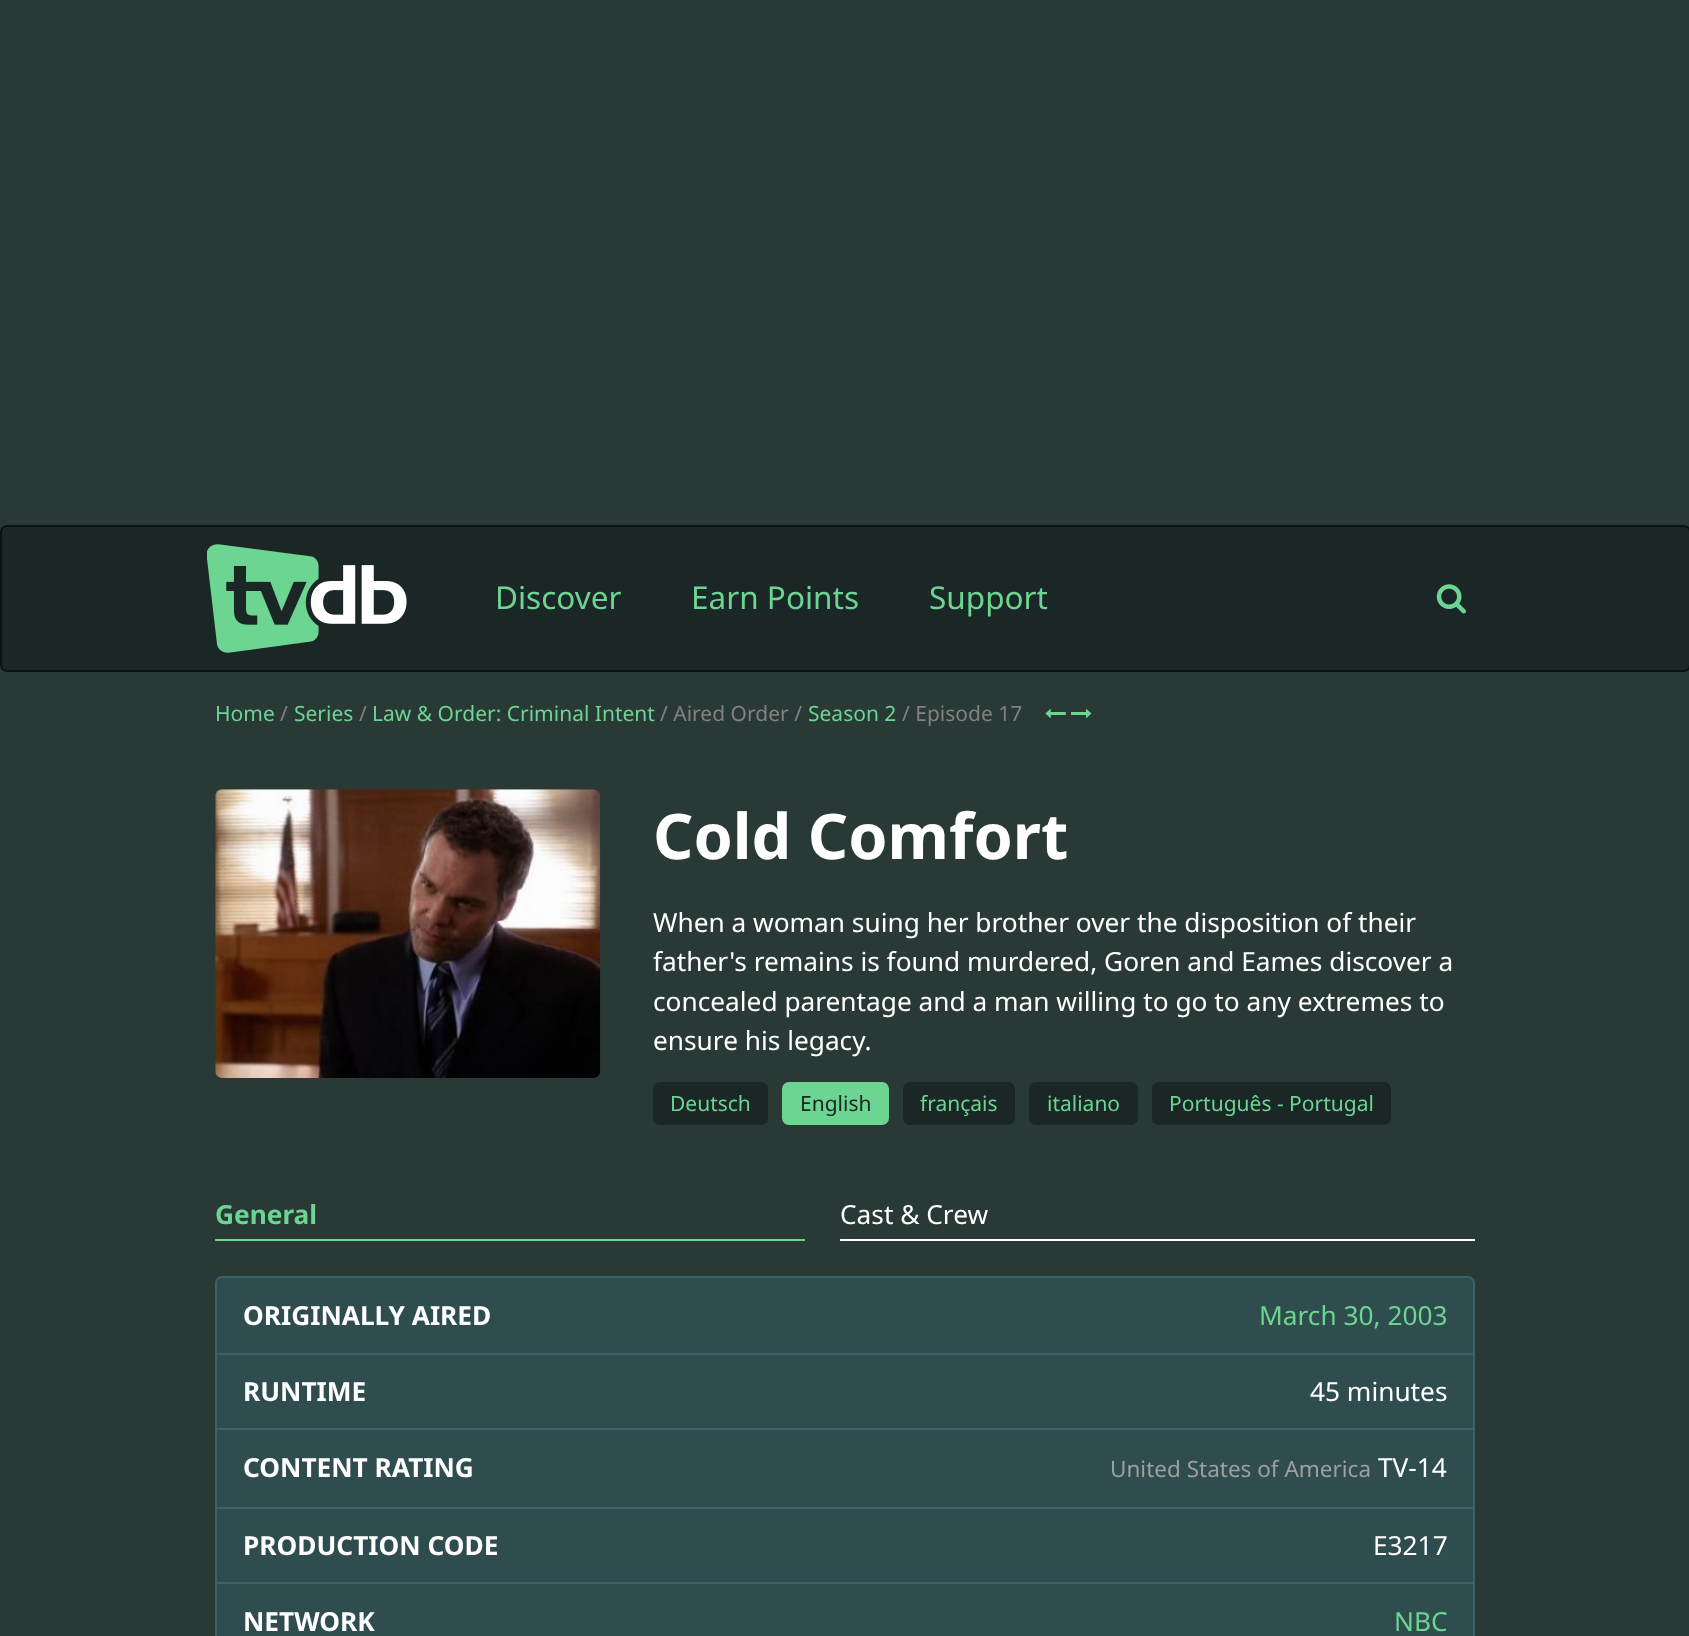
async function draw(canvas) {
	canvas.width = 1689;
	canvas.height = 1636;
	const c = canvas.getContext('2d');
	c.miterLimit = 4;
	c.fontKerning = 'normal';
	async function loadImage(src) {
		const img = new Image();
		img.src = src;
		await img.decode();
		return img;
	}

	c.fillStyle = '#293a36';
	c.fillRect(0, 0, 1689, 1636);
	c.fillStyle = '#1b2626';
	c.beginPath();
	c.roundRect(1, 526, 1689, 145, 6);
	c.fill();
	c.strokeStyle = '#0d1313';
	c.lineWidth = 2;
	c.stroke();
	c.drawImage(await loadImage('img1.png'), 207, 544, 200, 109);
	c.font = '31.5px Noto Sans';
	c.fillStyle = '#6cd591';
	for (const [text, x, y] of [
		['Discover', 495, 609],
		['Earn Points', 691, 609],
		['Support', 929, 609],
	]) {
		c.fillText(text, x, y);
	}
	c.drawImage(await loadImage('img2.png'), 1436, 584, 30, 30);
	c.font = '21px Noto Sans';
	c.fillText('Home', 215, 721);
	c.fillStyle = '#828181';
	c.fillText('/', 280, 721);
	c.fillStyle = '#6cd591';
	c.fillText('Series', 294, 721);
	c.fillStyle = '#828181';
	c.fillText('/', 359, 721);
	c.fillStyle = '#6cd591';
	c.fillText('Law & Order: Criminal Intent', 372, 721);
	c.fillStyle = '#828181';
	c.fillText('/ Aired Order /', 660, 721);
	c.fillStyle = '#6cd591';
	c.fillText('Season 2', 808, 721);
	c.fillStyle = '#828181';
	c.fillText('/ Episode 17', 902, 721);
	c.drawImage(await loadImage('img3.png'), 1045, 709, 21, 9);
	c.drawImage(await loadImage('img4.png'), 1071, 709, 21, 9);
	c.drawImage(await loadImage('img5.png'), 215, 789, 386, 289);
	c.font = 'bold 63px Noto Sans';
	c.fillStyle = '#fff';
	c.fillText('Cold Comfort', 653, 859);
	c.font = '26.25px Noto Sans';
	for (const [text, x, y] of [
		['When a woman suing her brother over the disposition of their', 653, 932],
		['father\'s remains is found murdered, Goren and Eames discover a', 653, 971],
		['concealed parentage and a man willing to go to any extremes to', 653, 1011],
		['ensure his legacy.', 653, 1050],
	]) {
		c.fillText(text, x, y);
	}
	c.fillStyle = '#1b2626';
	c.beginPath();
	c.roundRect(653, 1082, 115, 43, 7);
	c.fill();
	c.font = '21px Noto Sans';
	c.fillStyle = '#6cd591';
	c.fillText('Deutsch', 670, 1111);
	c.beginPath();
	c.roundRect(782, 1082, 107, 43, 7);
	c.fill();
	c.fillStyle = '#1b2626';
	c.fillText('English', 800, 1111);
	c.beginPath();
	c.roundRect(903, 1082, 112, 43, 7);
	c.fill();
	c.fillStyle = '#6cd591';
	c.fillText('français', 920, 1111);
	c.fillStyle = '#1b2626';
	c.beginPath();
	c.roundRect(1029, 1082, 109, 43, 7);
	c.fill();
	c.fillStyle = '#6cd591';
	c.fillText('italiano', 1047, 1111);
	c.fillStyle = '#1b2626';
	c.beginPath();
	c.roundRect(1152, 1082, 239, 43, 7);
	c.fill();
	c.fillStyle = '#6cd591';
	c.fillText('Português - Portugal', 1169, 1111);
	c.fillRect(215, 1239, 590, 2);
	c.font = 'bold 26.25px Noto Sans';
	c.fillText('General', 215, 1224);
	c.fillStyle = '#fff';
	c.fillRect(840, 1239, 635, 2);
	c.font = '26.25px Noto Sans';
	c.fillText('Cast & Crew', 840, 1224);
	c.fillStyle = '#2f4d4f';
	c.beginPath();
	c.roundRect(216, 1277, 1258, 77, [6, 6, 0, 0]);
	c.fill();
	c.strokeStyle = '#3c6365';
	c.stroke();
	c.font = 'bold 26.25px Noto Sans';
	c.fillStyle = '#fff';
	c.fillText('ORIGINALLY AIRED', 243, 1325);
	c.font = '26.25px Noto Sans';
	c.fillStyle = '#6cd591';
	c.fillText('March 30, 2003', 1259, 1325);
	c.fillStyle = '#2f4d4f';
	c.beginPath();
	c.rect(216, 1354, 1258, 75);
	c.fill();
	c.stroke();
	c.font = 'bold 26.25px Noto Sans';
	c.fillStyle = '#fff';
	c.fillText('RUNTIME', 243, 1401);
	c.font = '26.25px Noto Sans';
	c.fillText('45 minutes', 1310, 1401);
	c.fillStyle = '#2f4d4f';
	c.beginPath();
	c.rect(216, 1429, 1258, 79);
	c.fill();
	c.stroke();
	c.font = 'bold 26.25px Noto Sans';
	c.fillStyle = '#fff';
	c.fillText('CONTENT RATING', 243, 1477);
	c.font = '22.5px Noto Sans';
	c.fillStyle = '#9f9f9f';
	c.fillText('United States of America', 1110, 1477);
	c.font = '26.25px Noto Sans';
	c.fillStyle = '#fff';
	c.fillText('TV-14', 1378, 1477);
	c.fillStyle = '#2f4d4f';
	c.beginPath();
	c.rect(216, 1508, 1258, 75);
	c.fill();
	c.stroke();
	c.font = 'bold 26.25px Noto Sans';
	c.fillStyle = '#fff';
	c.fillText('PRODUCTION CODE', 243, 1555);
	c.font = '26.25px Noto Sans';
	c.fillText('E3217', 1373, 1555);
	c.fillStyle = '#2f4d4f';
	c.beginPath();
	c.rect(216, 1583, 1258, 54);
	c.fill();
	c.stroke();
	c.font = 'bold 26.25px Noto Sans';
	c.fillStyle = '#fff';
	c.fillText('NETWORK', 243, 1631);
	c.font = '26.25px Noto Sans';
	c.fillStyle = '#6cd591';
	c.fillText('NBC', 1394, 1631);
}

draw(document.querySelector('canvas'));
